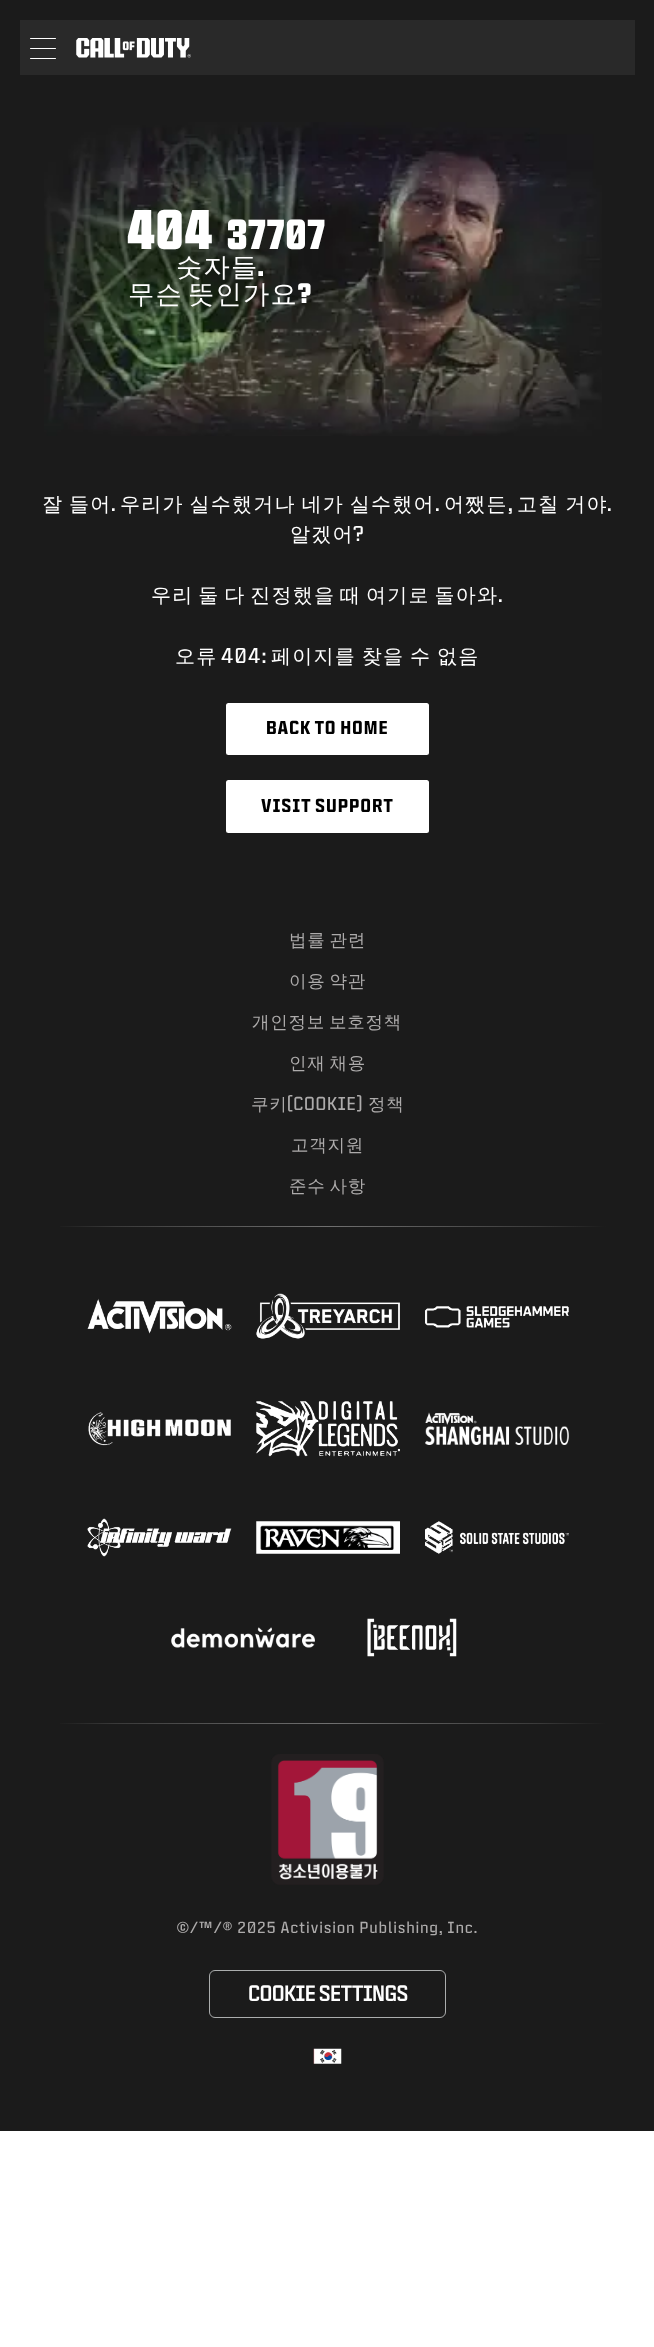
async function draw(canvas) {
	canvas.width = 654;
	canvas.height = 2347;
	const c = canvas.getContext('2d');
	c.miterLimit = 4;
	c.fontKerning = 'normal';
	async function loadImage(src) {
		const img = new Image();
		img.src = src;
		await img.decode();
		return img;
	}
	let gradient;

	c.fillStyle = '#fff';
	c.fillRect(0, 0, 654, 2347);
	c.fillStyle = '#1b1b1b';
	c.fillRect(0, 0, 654, 2131);
	c.fillStyle = '#292929';
	c.fillRect(20, 20, 615, 55);
	c.fillStyle = '#fff';
	c.beginPath();
	c.roundRect(30, 38, 26, 1, 0.5);
	c.fill();
	c.beginPath();
	c.roundRect(30, 48, 26, 1, 0.5);
	c.fill();
	c.beginPath();
	c.roundRect(30, 58, 26, 1, 0.5);
	c.fill();
	c.drawImage(await loadImage('img1.png'), 76, 38, 115, 20);
	c.drawImage(await loadImage('img2.png'), 44, 122, 558, 314);
	c.letterSpacing = '1.25px';
	c.font = '900 52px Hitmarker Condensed';
	c.fillText('404', 127, 249);
	c.font = '900 39px Hitmarker Condensed';
	c.fillText('37707', 227, 249);
	c.font = '500 26.25px WenQuanYi Zen Hei';
	c.fillText('숫자들', 176, 276);
	c.font = '900 26.25px Hitmarker Condensed';
	c.fillText('.', 258, 276);
	c.wordSpacing = '-4px';
	c.font = '500 26.25px WenQuanYi Zen Hei';
	c.fillText('무슨 뜻인가요', 128, 303);
	c.wordSpacing = '0px';
	c.font = '900 26.25px Hitmarker Condensed';
	c.fillText('?', 298, 303);
	c.wordSpacing = '-1.5px';
	c.font = '500 20px WenQuanYi Zen Hei';
	c.fillText('잘 들어', 42, 511);
	c.wordSpacing = '0px';
	c.font = '20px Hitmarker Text';
	c.fillText('.', 111, 511);
	c.wordSpacing = '-1.5px';
	c.font = '500 20px WenQuanYi Zen Hei';
	c.fillText('우리가 실수했거나 네가 실수했어', 120, 511);
	c.wordSpacing = '0px';
	c.font = '20px Hitmarker Text';
	c.fillText('.', 435, 511);
	c.font = '500 20px WenQuanYi Zen Hei';
	c.fillText('어쨌든', 444, 511);
	c.font = '20px Hitmarker Text';
	c.fillText(',', 508, 511);
	c.wordSpacing = '-1.5px';
	c.font = '500 20px WenQuanYi Zen Hei';
	c.fillText('고칠 거야', 517, 511);
	c.wordSpacing = '0px';
	c.font = '20px Hitmarker Text';
	c.fillText('.', 607, 511);
	c.font = '500 20px WenQuanYi Zen Hei';
	c.fillText('알겠어', 290, 541);
	c.font = '20px Hitmarker Text';
	c.fillText('?', 353, 541);
	c.wordSpacing = '-2.5px';
	c.font = '500 20px WenQuanYi Zen Hei';
	c.fillText('우리 둘 다 진정했을 때 여기로 돌아와', 151, 602);
	c.wordSpacing = '0px';
	c.font = '20px Hitmarker Text';
	c.fillText('.', 498, 602);
	c.font = '500 20px WenQuanYi Zen Hei';
	c.fillText('오류', 175, 663);
	c.font = '20px Hitmarker Text';
	c.fillText('404:', 221, 663);
	c.wordSpacing = '-1.5px';
	c.font = '500 20px WenQuanYi Zen Hei';
	c.fillText('페이지를 찾을 수 없음', 271, 663);
	c.beginPath();
	c.roundRect(226, 703, 203, 52, 2.5);
	c.fill();
	c.letterSpacing = '0.9px';
	c.wordSpacing = '0px';
	c.font = 'bold 17.5px "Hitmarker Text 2"';
	c.fillStyle = '#000';
	c.fillText('BACK TO HOME', 266, 734);
	c.fillStyle = '#fff';
	c.beginPath();
	c.roundRect(226, 780, 203, 53, 2.5);
	c.fill();
	c.fillStyle = '#000';
	c.fillText('VISIT SUPPORT', 261, 812);
	c.letterSpacing = '0.75px';
	c.wordSpacing = '-2px';
	c.font = '500 17.5px WenQuanYi Zen Hei';
	c.fillStyle = '#adabab';
	for (const [text, x, y] of [
		['법률 관련', 289, 946],
		['이용 약관', 289, 987],
		['개인정보 보호정책', 252, 1028],
		['인재 채용', 289, 1069],
	]) {
		c.fillText(text, x, y);
	}
	c.wordSpacing = '0px';
	c.fillText('쿠키', 251, 1110);
	c.font = '17.5px Hitmarker Text';
	c.fillText('(COOKIE)', 287, 1110);
	c.font = '500 17.5px WenQuanYi Zen Hei';
	c.fillText('정책', 368, 1110);
	c.fillText('고객지원', 291, 1151);
	c.wordSpacing = '-2px';
	c.fillText('준수 사항', 289, 1192);
	gradient = c.createLinearGradient(49, 1227, 606, 1227);
	gradient.addColorStop(0.01, '#1b1b1b');
	gradient.addColorStop(0.12, '#3a3a3a');
	gradient.addColorStop(0.5, '#707070');
	gradient.addColorStop(0.88, '#3a3a3a');
	gradient.addColorStop(1, '#1b1b1b');
	c.fillStyle = gradient;
	c.fillRect(60, 1226, 546, 1);
	c.drawImage(await loadImage('img3.png'), 87, 1298, 145, 36);
	c.drawImage(await loadImage('img4.png'), 256, 1293, 144, 46);
	c.drawImage(await loadImage('img5.png'), 425, 1306, 144, 22);
	c.drawImage(await loadImage('img6.png'), 88, 1412, 143, 34);
	c.drawImage(await loadImage('img7.png'), 256, 1401, 144, 56);
	c.drawImage(await loadImage('img8.png'), 425, 1412, 144, 33);
	c.drawImage(await loadImage('img9.png'), 87, 1518, 145, 39);
	c.drawImage(await loadImage('img10.png'), 256, 1521, 144, 33);
	c.drawImage(await loadImage('img11.png'), 425, 1521, 144, 33);
	c.drawImage(await loadImage('img12.png'), 171, 1627, 144, 21);
	c.drawImage(await loadImage('img13.png'), 367, 1618, 90, 39);
	gradient = c.createLinearGradient(49, 1723, 606, 1723);
	gradient.addColorStop(0.01, '#1b1b1b');
	gradient.addColorStop(0.12, '#3a3a3a');
	gradient.addColorStop(0.5, '#707070');
	gradient.addColorStop(0.88, '#3a3a3a');
	gradient.addColorStop(1, '#1b1b1b');
	c.fillStyle = gradient;
	c.fillRect(60, 1723, 546, 1);
	c.drawImage(await loadImage('img14.png'), 271, 1754, 113, 131);
	c.letterSpacing = '1.25px';
	c.wordSpacing = '0px';
	c.font = '15px Hitmarker Text';
	c.fillStyle = '#adabab';
	c.fillText('©/™/® 2025 Activision Publishing, Inc.', 177, 1933);
	c.beginPath();
	c.roundRect(209.5, 1970.5, 236, 47, 5.5);
	c.strokeStyle = '#abadad';
	c.stroke();
	c.letterSpacing = '0px';
	c.font = 'bold 20px Hitmarker Text';
	c.fillStyle = '#fff';
	c.fillText('COOKIE SETTINGS', 248, 2001);
	c.drawImage(await loadImage('img15.png'), 313, 2048, 29, 16);
}

draw(document.querySelector('canvas'));
